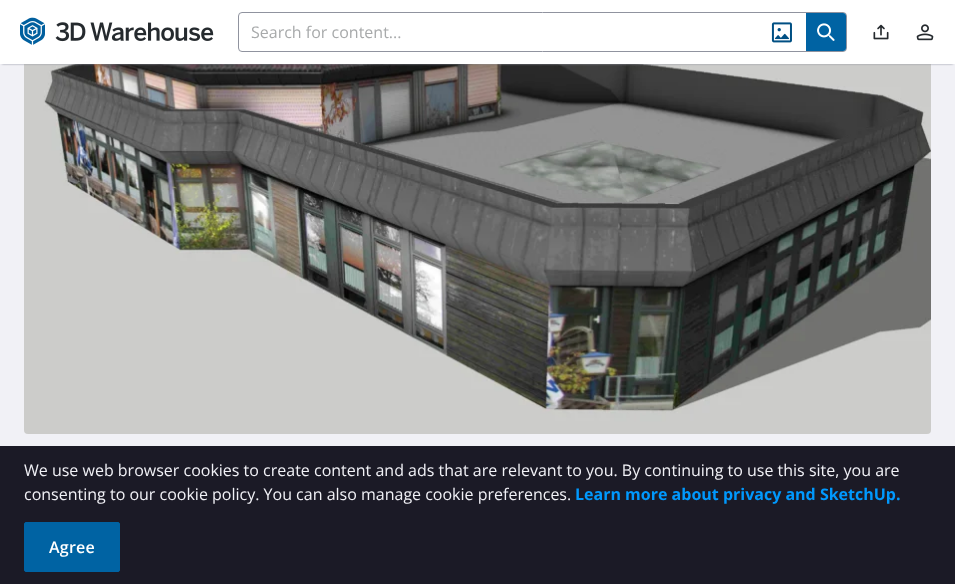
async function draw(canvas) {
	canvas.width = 955;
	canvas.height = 584;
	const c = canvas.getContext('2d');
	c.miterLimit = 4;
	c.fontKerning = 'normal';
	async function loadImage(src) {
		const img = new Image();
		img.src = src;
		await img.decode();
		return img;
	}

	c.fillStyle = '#f1f1f6';
	c.fillRect(0, 0, 955, 584);
	c.drawImage(await loadImage('img7.png'), 24, 64, 907, 370);
	c.fillStyle = '#90939f';
	c.filter = 'blur(1px)';
	c.beginPath();
	c.rect(2, 4, 951, 60);
	c.fill();
	c.filter = 'none';
	c.fillStyle = '#fff';
	c.fillRect(0, 0, 955, 64);
	c.drawImage(await loadImage('img1.png'), 20, 17, 25, 28);
	c.drawImage(await loadImage('img2.png'), 55, 22, 159, 20);
	c.beginPath();
	c.roundRect(238.5, 12.5, 608, 39, 3.5);
	c.strokeStyle = '#90939f';
	c.stroke();
	c.font = '16px Open Sans';
	c.fillStyle = '#a8aaab';
	c.fillText('Search for content...', 251, 38);
	c.drawImage(await loadImage('img3.png'), 771, 22, 21, 21);
	c.fillStyle = '#0063a3';
	c.beginPath();
	c.roundRect(806, 13, 40, 38, [0, 3, 3, 0]);
	c.fill();
	c.drawImage(await loadImage('img4.png'), 817, 23, 18, 18);
	c.drawImage(await loadImage('img5.png'), 873, 24, 16, 16);
	c.drawImage(await loadImage('img6.png'), 916, 24, 18, 17);
	c.fillStyle = '#1b1a26';
	c.fillRect(0, 446, 955, 138);
	c.fillStyle = '#f1f1f6';
	c.fillText('We use web browser cookies to create content and ads that are relevant to you. By continuing to use this site, you are', 24, 476);
	c.fillText('consenting to our cookie policy. You can also manage cookie preferences.', 24, 500);
	c.font = 'bold 16px Open Sans';
	c.fillStyle = '#0099fe';
	c.fillText('Learn more about privacy and SketchUp.', 575, 500);
	c.fillStyle = '#0063a3';
	c.beginPath();
	c.roundRect(24.5, 522.5, 95, 49, 1.5);
	c.fill();
	c.strokeStyle = '#0063a3';
	c.stroke();
	c.letterSpacing = '0.25px';
	c.font = '600 16px Open Sans';
	c.fillStyle = '#fff';
	c.fillText('Agree', 49, 553);
}

draw(document.querySelector('canvas'));
